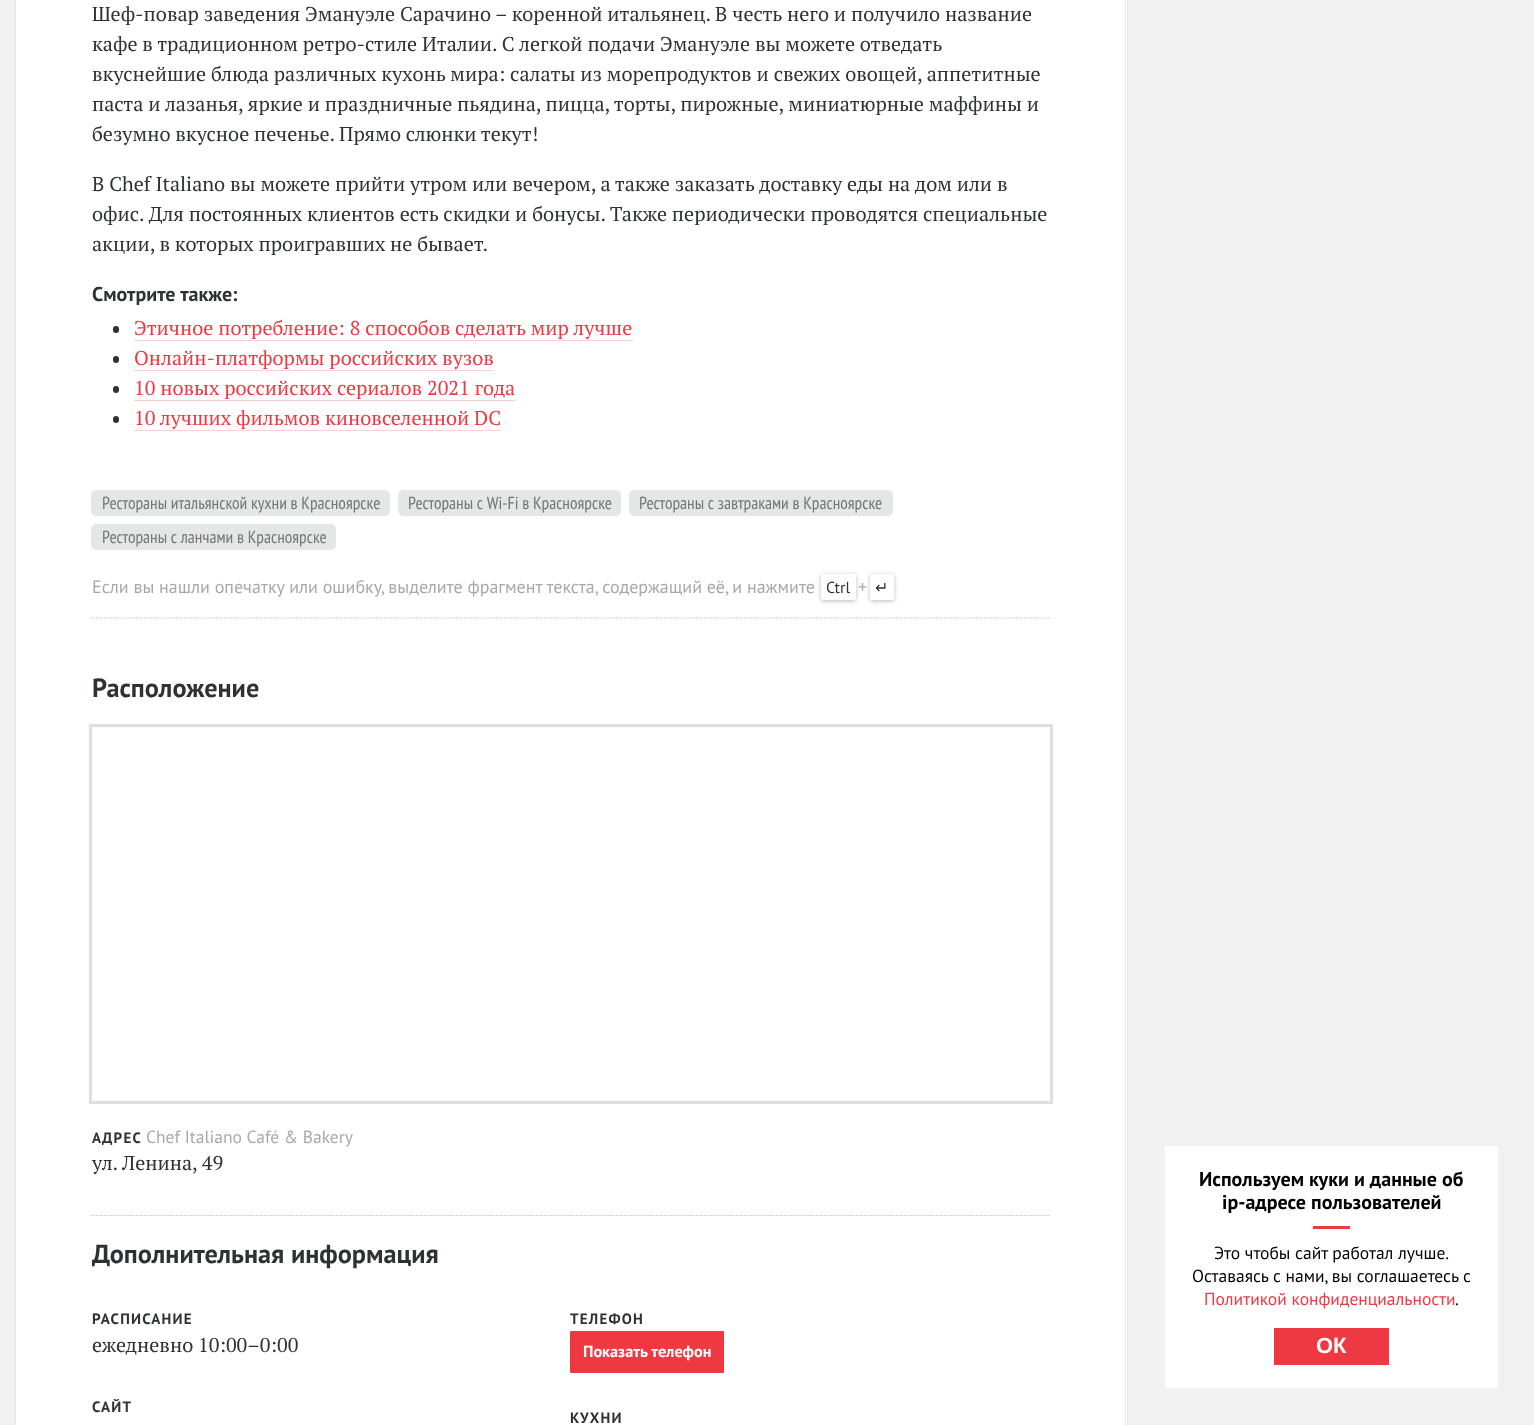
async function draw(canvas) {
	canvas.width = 1534;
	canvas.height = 1425;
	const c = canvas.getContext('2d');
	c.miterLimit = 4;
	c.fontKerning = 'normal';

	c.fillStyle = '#f1f1f1';
	c.fillRect(0, 0, 1534, 1425);
	c.fillStyle = '#fff';
	c.fillRect(16, 0, 1111, 1425);
	c.strokeStyle = '#e6e8ea';
	c.strokeRect(14.5, -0.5, 1113, 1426);
	c.strokeRect(15.5, -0.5, 1110, 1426);
	c.font = '20px PT Serif';
	c.fillStyle = '#2f3235';
	for (const [text, x, y] of [
		['Шеф-повар заведения Эмануэле Сарачино – коренной итальянец. В честь него и получило название', 92, 21],
		['кафе в традиционном ретро-стиле Италии. С легкой подачи Эмануэле вы можете отведать', 92, 51],
		['вкуснейшие блюда различных кухонь мира: салаты из морепродуктов и свежих овощей, аппетитные', 92, 81],
		['паста и лазанья, яркие и праздничные пьядина, пицца, торты, пирожные, миниатюрные маффины и', 92, 111],
		['безумно вкусное печенье. Прямо слюнки текут!', 92, 141],
		['В Chef Italiano вы можете прийти утром или вечером, а также заказать доставку еды на дом или в', 92, 191],
		['офис. Для постоянных клиентов есть скидки и бонусы. Также периодически проводятся специальные', 92, 221],
		['акции, в которых проигравших не бывает.', 92, 251],
	]) {
		c.fillText(text, x, y);
	}
	c.font = 'bold 20px PT Sans';
	c.fillText('Смотрите также:', 92, 301);
	c.beginPath();
	c.roundRect(113, 326, 6, 7, 3);
	c.fill();
	c.font = '20px PT Serif';
	c.fillStyle = '#ee3942';
	c.fillText('Этичное потребление: 8 способов сделать мир лучше', 134, 335);
	c.fillStyle = '#fbced0';
	c.fillRect(134, 340, 499, 1);
	c.fillStyle = '#2f3235';
	c.beginPath();
	c.roundRect(113, 356, 6, 7, 3);
	c.fill();
	c.fillStyle = '#ee3942';
	c.fillText('Онлайн-платформы российских вузов', 134, 365);
	c.fillStyle = '#fbced0';
	c.fillRect(134, 370, 360, 1);
	c.fillStyle = '#2f3235';
	c.beginPath();
	c.roundRect(113, 386, 6, 7, 3);
	c.fill();
	c.fillStyle = '#ee3942';
	c.fillText('10 новых российских сериалов 2021 года', 134, 395);
	c.fillStyle = '#fbced0';
	c.fillRect(134, 400, 381, 1);
	c.fillStyle = '#2f3235';
	c.beginPath();
	c.roundRect(113, 416, 6, 7, 3);
	c.fill();
	c.fillStyle = '#ee3942';
	c.fillText('10 лучших фильмов киновселенной DC', 134, 425);
	c.fillStyle = '#fbced0';
	c.fillRect(134, 430, 367, 1);
	c.fillStyle = '#e5e6e6';
	c.beginPath();
	c.roundRect(91, 490, 299, 26, 5);
	c.fill();
	c.font = '17.5px PT Sans Narrow';
	c.fillStyle = '#757575';
	c.fillText('Рестораны итальянской кухни в Красноярске', 102, 509);
	c.fillStyle = '#e5e6e6';
	c.beginPath();
	c.roundRect(398, 490, 223, 26, 5);
	c.fill();
	c.fillStyle = '#757575';
	c.fillText('Рестораны с Wi-Fi в Красноярске', 408, 509);
	c.fillStyle = '#e5e6e6';
	c.beginPath();
	c.roundRect(629, 490, 264, 26, 5);
	c.fill();
	c.fillStyle = '#757575';
	c.fillText('Рестораны с завтраками в Красноярске', 639, 509);
	c.fillStyle = '#e5e6e6';
	c.beginPath();
	c.roundRect(91, 524, 245, 26, 5);
	c.fill();
	c.fillStyle = '#757575';
	c.fillText('Рестораны с ланчами в Красноярске', 102, 543);
	c.font = '18px PT Sans';
	c.fillStyle = '#a6a8aa';
	c.fillText('Если вы нашли опечатку или ошибку, выделите фрагмент текста, содержащий её, и нажмите', 92, 593);
	c.save();
	c.beginPath();
	c.moveTo(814, 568);
	c.lineTo(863, 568);
	c.lineTo(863, 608);
	c.lineTo(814, 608);
	c.closePath();
	c.moveTo(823.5, 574);
	c.lineTo(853.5, 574);
	c.bezierCurveTo(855, 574, 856, 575, 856, 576.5);
	c.lineTo(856, 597.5);
	c.bezierCurveTo(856, 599, 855, 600, 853.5, 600);
	c.lineTo(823.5, 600);
	c.bezierCurveTo(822, 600, 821, 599, 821, 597.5);
	c.lineTo(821, 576.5);
	c.bezierCurveTo(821, 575, 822, 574, 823.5, 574);
	c.closePath();
	c.clip('evenodd');
	c.fillStyle = '#1e14324d';
	c.filter = 'blur(2px)';
	c.beginPath();
	c.roundRect(821, 575, 35, 26, 2.5);
	c.fill();
	c.filter = 'none';
	c.restore();
	c.beginPath();
	c.roundRect(821.5, 574.5, 34, 25, 2);
	c.strokeStyle = '#fff';
	c.stroke();
	c.font = '16px PT Sans';
	c.fillStyle = '#2f3235';
	c.fillText('Ctrl', 826, 593);
	c.font = '18px PT Sans';
	c.fillStyle = '#a6a8aa';
	c.fillText('+', 858, 593);
	c.save();
	c.beginPath();
	c.moveTo(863, 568);
	c.lineTo(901, 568);
	c.lineTo(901, 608);
	c.lineTo(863, 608);
	c.closePath();
	c.moveTo(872.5, 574);
	c.lineTo(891.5, 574);
	c.bezierCurveTo(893, 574, 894, 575, 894, 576.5);
	c.lineTo(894, 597.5);
	c.bezierCurveTo(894, 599, 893, 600, 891.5, 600);
	c.lineTo(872.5, 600);
	c.bezierCurveTo(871, 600, 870, 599, 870, 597.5);
	c.lineTo(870, 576.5);
	c.bezierCurveTo(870, 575, 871, 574, 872.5, 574);
	c.closePath();
	c.clip('evenodd');
	c.fillStyle = '#1e14324d';
	c.filter = 'blur(2px)';
	c.beginPath();
	c.roundRect(870, 575, 24, 26, 2.5);
	c.fill();
	c.filter = 'none';
	c.restore();
	c.beginPath();
	c.roundRect(870.5, 574.5, 23, 25, 2);
	c.stroke();
	c.font = '16px DejaVu Sans';
	c.fillStyle = '#2f3235';
	c.fillText('↵', 875, 593);
	c.beginPath();
	c.moveTo(91, 618);
	c.lineTo(1050, 618);
	c.strokeStyle = '#bdc2c1';
	c.lineWidth = 1.2;
	c.setLineDash([1.25, 1.25]);
	c.stroke();
	c.beginPath();
	c.moveTo(91, 1215.5);
	c.lineTo(1050, 1215.5);
	c.stroke();
	c.font = 'bold 26.25px PT Sans';
	c.fillText('Расположение', 92, 697);
	c.strokeStyle = '#dee0e0';
	c.lineWidth = 3;
	c.setLineDash([]);
	c.strokeRect(90.5, 725.5, 961, 377);
	c.letterSpacing = '1.25px';
	c.font = 'bold 15px PT Sans';
	c.fillText('АДРЕС', 92, 1143);
	c.letterSpacing = '0px';
	c.font = '17.5px PT Sans';
	c.fillStyle = '#a6a8aa';
	c.fillText('Chef Italiano Café & Bakery', 146, 1143);
	c.font = '20px PT Serif';
	c.fillStyle = '#2f3235';
	c.fillText('ул. Ленина, 49', 92, 1170);
	c.font = 'bold 26.25px PT Sans';
	c.fillText('Дополнительная информация', 92, 1263);
	c.letterSpacing = '1.25px';
	c.font = 'bold 15px PT Sans';
	c.fillText('РАСПИСАНИЕ', 92, 1324);
	c.letterSpacing = '0px';
	c.font = '20px PT Serif';
	c.fillText('ежедневно 10:00–0:00', 92, 1352);
	c.letterSpacing = '1.25px';
	c.font = 'bold 15px PT Sans';
	c.fillText('ТЕЛЕФОН', 570, 1324);
	c.fillStyle = '#ee3942';
	c.beginPath();
	c.roundRect(570, 1331, 154, 42, 1);
	c.fill();
	c.letterSpacing = '0px';
	c.font = 'bold 16.25px PT Sans';
	c.fillStyle = '#fff';
	c.fillText('Показать телефон', 583, 1357);
	c.letterSpacing = '1.25px';
	c.font = 'bold 15px PT Sans';
	c.fillStyle = '#2f3235';
	c.fillText('САЙТ', 92, 1412);
	c.fillText('КУХНИ', 570, 1423);
	c.fillStyle = '#fff';
	c.fillRect(1165, 1146, 333, 242);
	c.letterSpacing = '0px';
	c.font = 'bold 20px PT Sans';
	c.fillStyle = '#000';
	c.fillText('Используем куки и данные об', 1199, 1186);
	c.fillText('ip-адресе пользователей', 1222, 1209);
	c.fillStyle = '#ee3942';
	c.fillRect(1313, 1226, 37, 3);
	c.font = '17.5px PT Sans';
	c.fillStyle = '#000';
	c.fillText('Это чтобы сайт работал лучше.', 1214, 1259);
	c.fillText('Оставаясь с нами, вы соглашаетесь с', 1192, 1282);
	c.fillStyle = '#ee3942';
	c.fillText('Политикой конфиденциальности', 1204, 1305);
	c.fillStyle = '#000';
	c.fillText('.', 1455, 1305);
	c.fillStyle = '#ee3942';
	c.fillRect(1274, 1328, 115, 37);
	c.font = 'bold 22px Liberation Sans';
	c.fillStyle = '#fff';
	c.fillText('ОК', 1316, 1353);
}

draw(document.querySelector('canvas'));
